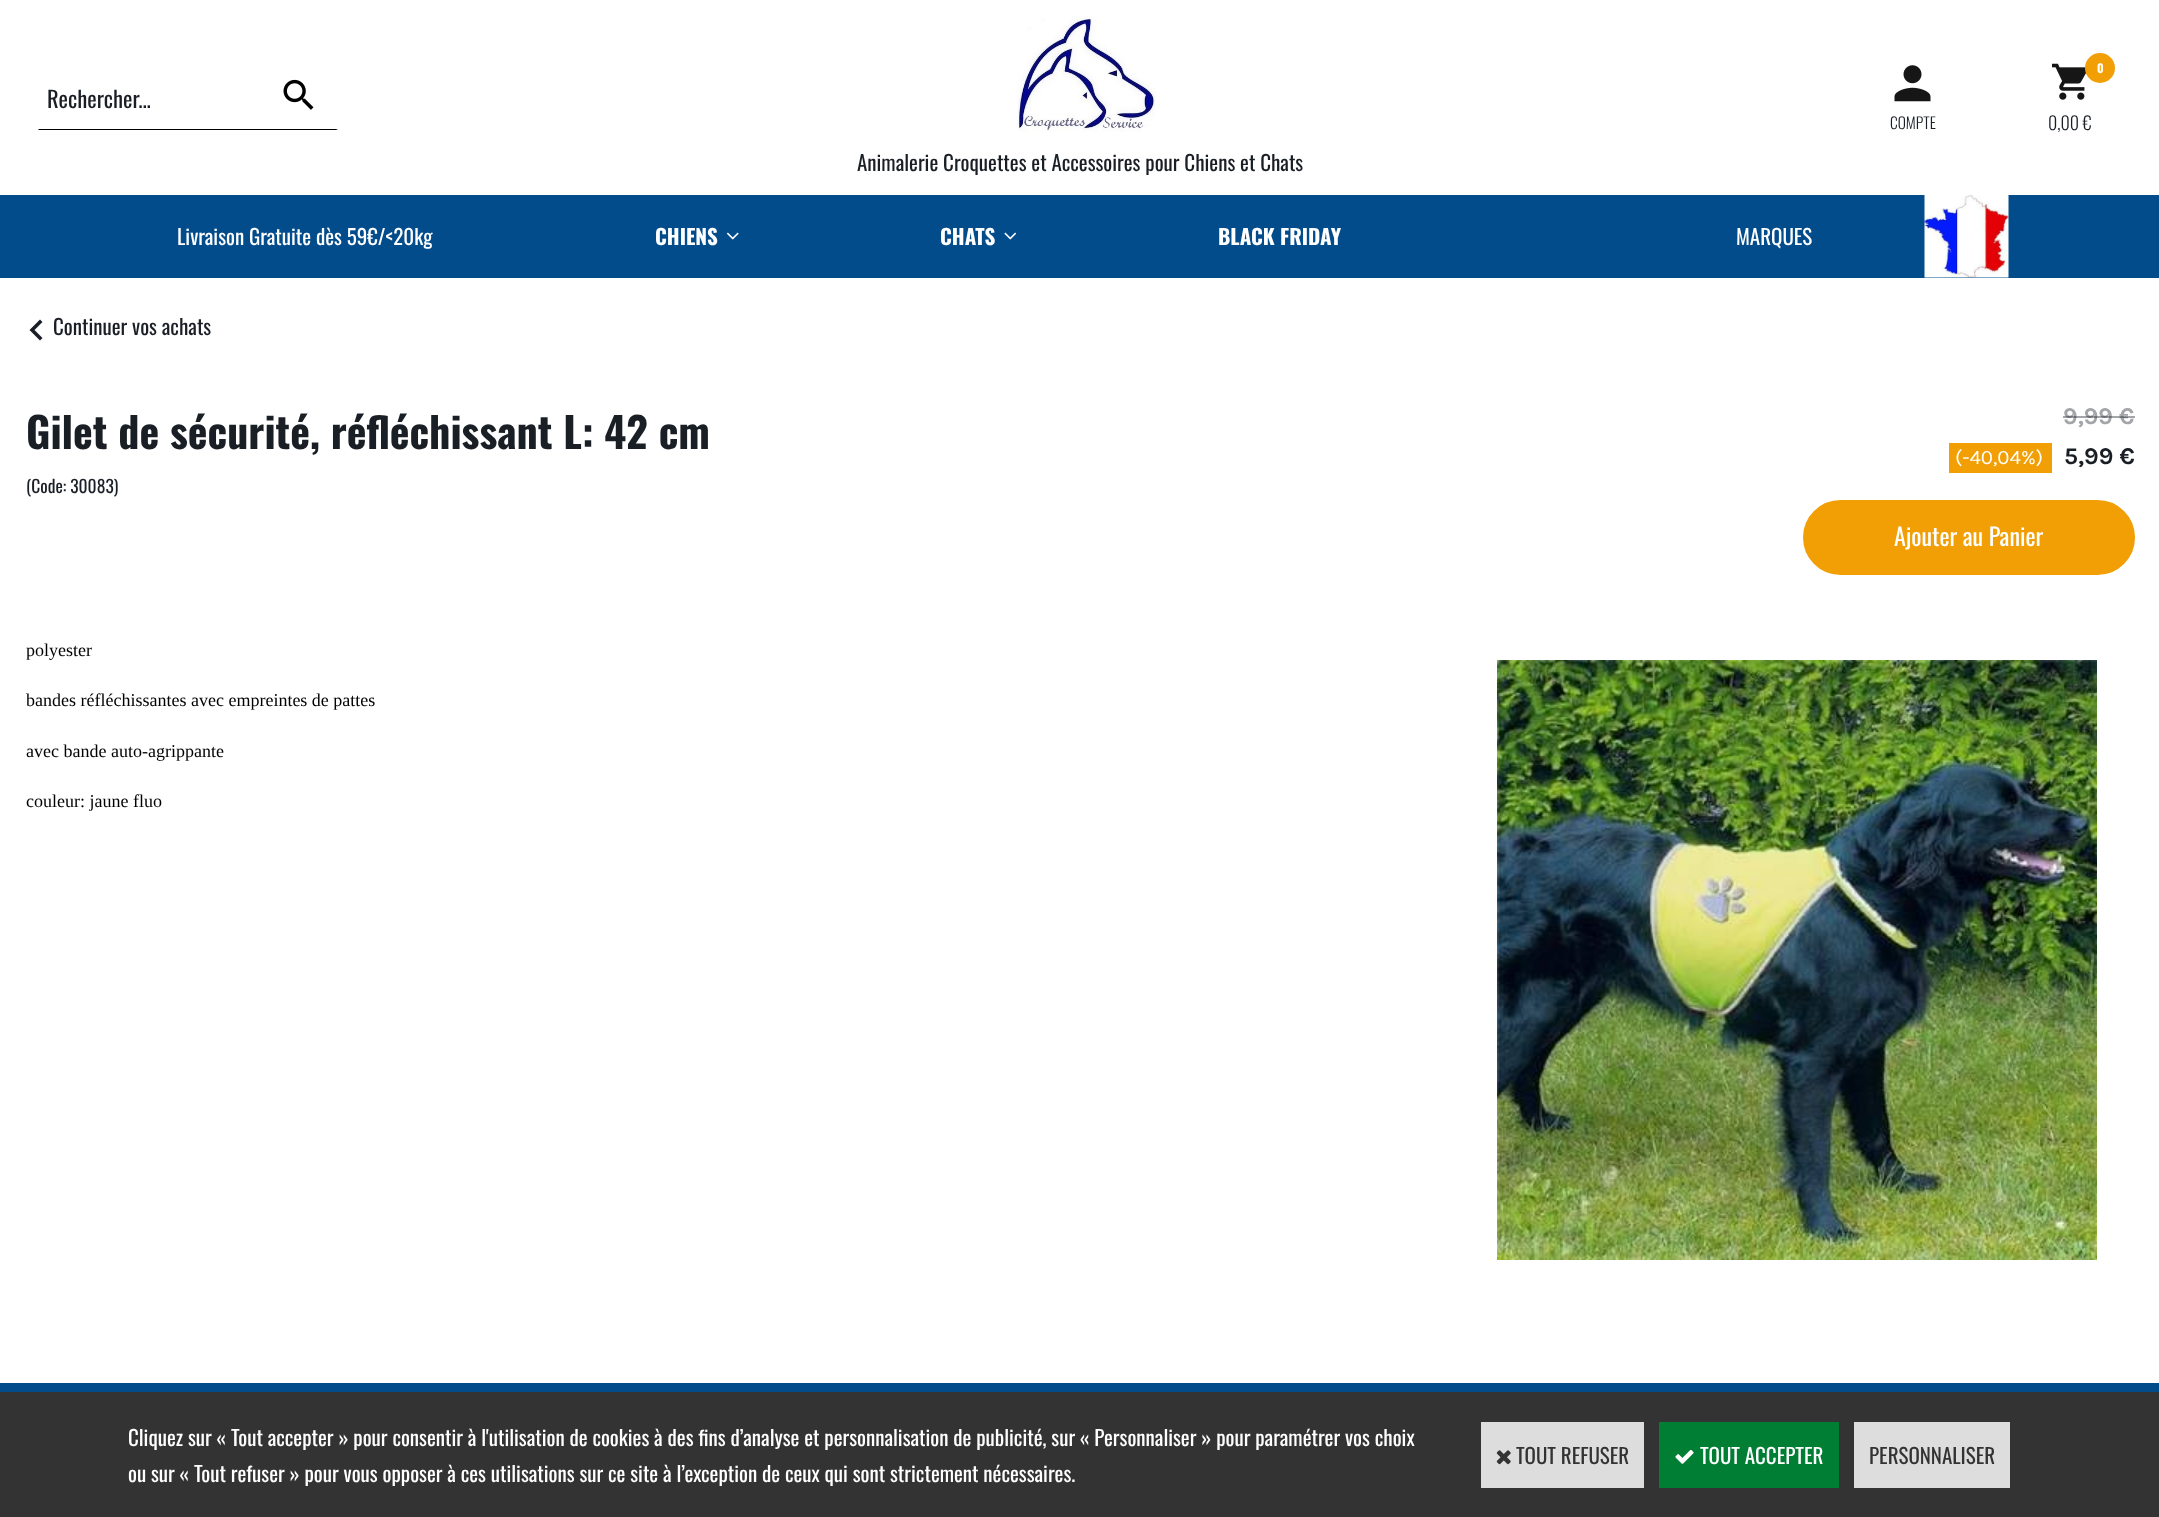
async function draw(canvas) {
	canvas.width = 2159;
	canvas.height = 1517;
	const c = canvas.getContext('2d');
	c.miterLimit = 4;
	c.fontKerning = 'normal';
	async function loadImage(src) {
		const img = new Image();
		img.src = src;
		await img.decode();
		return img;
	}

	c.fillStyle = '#fff';
	c.fillRect(0, 0, 2159, 1517);
	c.fillStyle = '#000';
	c.beginPath();
	c.moveTo(261, 130);
	c.lineTo(38, 130);
	c.lineTo(39, 129);
	c.lineTo(261, 129);
	c.closePath();
	c.fill();
	c.font = '22.5px Oswald';
	c.fillStyle = '#1a1f26';
	c.fillText('Rechercher...', 47, 108);
	c.fillStyle = '#000';
	c.beginPath();
	c.moveTo(338, 130);
	c.lineTo(261, 130);
	c.lineTo(261, 129);
	c.lineTo(336, 129);
	c.closePath();
	c.fill();
	c.drawImage(await loadImage('img1.png'), 283, 79, 31, 31);
	c.drawImage(await loadImage('img2.png'), 1894, 65, 37, 37);
	c.font = '300 15.5px Oswald';
	c.fillStyle = '#1a1f26';
	c.fillText('COMPTE', 1890, 129);
	c.drawImage(await loadImage('img3.png'), 2052, 63, 34, 37);
	c.fillStyle = '#f29f05';
	c.beginPath();
	c.arc(2100, 68, 15, 0, 2 * Math.PI);
	c.fill();
	c.font = 'bold 12px Oswald';
	c.fillStyle = '#fff';
	c.fillText('0', 2097, 73);
	c.font = '300 18px Oswald';
	c.fillStyle = '#1a1f26';
	c.fillText('0,00 €', 2048, 130);
	c.drawImage(await loadImage('img4.png'), 1017, 15, 139, 117);
	c.font = '21px Oswald';
	c.fillText('Animalerie Croquettes et Accessoires pour Chiens et Chats', 857, 171);
	c.fillStyle = '#034c8c';
	c.fillRect(0, 195, 2159, 83);
	c.fillStyle = '#fff';
	c.fillText('Livraison Gratuite dès 59€/<20kg', 177, 245);
	c.font = 'bold 21px Oswald';
	c.fillText('CHIENS', 655, 245);
	c.drawImage(await loadImage('img5.png'), 726, 232, 13, 8);
	c.fillText('CHATS', 940, 245);
	c.drawImage(await loadImage('img6.png'), 1004, 232, 13, 8);
	c.fillText('BLACK FRIDAY', 1218, 245);
	c.font = '21px Oswald';
	c.fillText('MARQUES', 1736, 245);
	c.drawImage(await loadImage('img7.png'), 1924, 195, 85, 83);
	c.fillStyle = '#1a1f26';
	c.beginPath();
	c.moveTo(42.5, 338);
	c.lineTo(34.5, 330);
	c.lineTo(42.5, 322);
	c.lineTo(40, 319.5);
	c.lineTo(29.5, 330);
	c.lineTo(40, 340.5);
	c.closePath();
	c.fill();
	c.fillText('Continuer vos achats', 53, 335);
	c.font = 'bold 42px Oswald';
	c.fillText('Gilet de sécurité, réfléchissant L: 42 cm', 26, 449);
	c.font = '17.5px Oswald';
	c.fillText('(Code: 30083)', 26, 493);
	c.font = 'bold 24px Karla';
	c.fillStyle = '#a3a5a8';
	c.fillText('9,99 €', 2063, 424);
	c.fillStyle = '#1a1f2666';
	c.fillRect(2063, 416, 72, 2);
	c.fillStyle = '#f29f05';
	c.fillRect(1949, 443, 103, 30);
	c.font = '20.5px Karla';
	c.fillStyle = '#fff';
	c.fillText('(-40,04%)', 1955, 464);
	c.font = 'bold 24px Karla';
	c.fillStyle = '#1a1f26';
	c.fillText('5,99 €', 2064, 464);
	c.fillStyle = '#f29f05';
	c.beginPath();
	c.roundRect(1804, 501, 330, 73, 36.5);
	c.fill();
	c.strokeStyle = '#f29f05';
	c.lineWidth = 2;
	c.stroke();
	c.font = '24px Oswald';
	c.fillStyle = '#fff';
	c.fillText('Ajouter au Panier', 1894, 546);
	c.font = '18px Liberation Serif';
	c.fillStyle = '#000';
	for (const [text, x, y] of [
		['polyester', 26, 656],
		['bandes réfléchissantes avec empreintes de pattes', 26, 706],
		['avec bande auto-agrippante', 26, 757],
		['couleur: jaune fluo', 26, 807],
	]) {
		c.fillText(text, x, y);
	}
	c.drawImage(await loadImage('img8.png'), 1497, 660, 600, 600);
	c.fillStyle = '#034c8c';
	c.fillRect(0, 1383, 2159, 9);
	c.fillStyle = '#333';
	c.fillRect(0, 1392, 2159, 125);
	c.font = '21px Oswald';
	c.fillStyle = '#fff';
	c.fillText('Cliquez sur « Tout accepter » pour consentir à l\'utilisation de cookies à des fins d’analyse et personnalisation de publicité, sur « Personnaliser » pour paramétrer vos choix', 128, 1446);
	c.fillText('ou sur « Tout refuser » pour vous opposer à ces utilisations sur ce site à l’exception de ceux qui sont strictement nécessaires.', 128, 1482);
	c.fillStyle = '#ddd';
	c.fillRect(1481, 1422, 163, 66);
	c.drawImage(await loadImage('img9.png'), 1496, 1450, 15, 15);
	c.fillStyle = '#333';
	c.fillText('TOUT REFUSER', 1516, 1464);
	c.fillStyle = '#007e33';
	c.fillRect(1659, 1422, 180, 66);
	c.drawImage(await loadImage('img10.png'), 1675, 1449, 19, 15);
	c.fillStyle = '#fff';
	c.fillText('TOUT ACCEPTER', 1700, 1464);
	c.fillStyle = '#ddd';
	c.fillRect(1854, 1422, 156, 66);
	c.fillStyle = '#333';
	c.fillText('PERSONNALISER', 1869, 1464);
}

draw(document.querySelector('canvas'));
